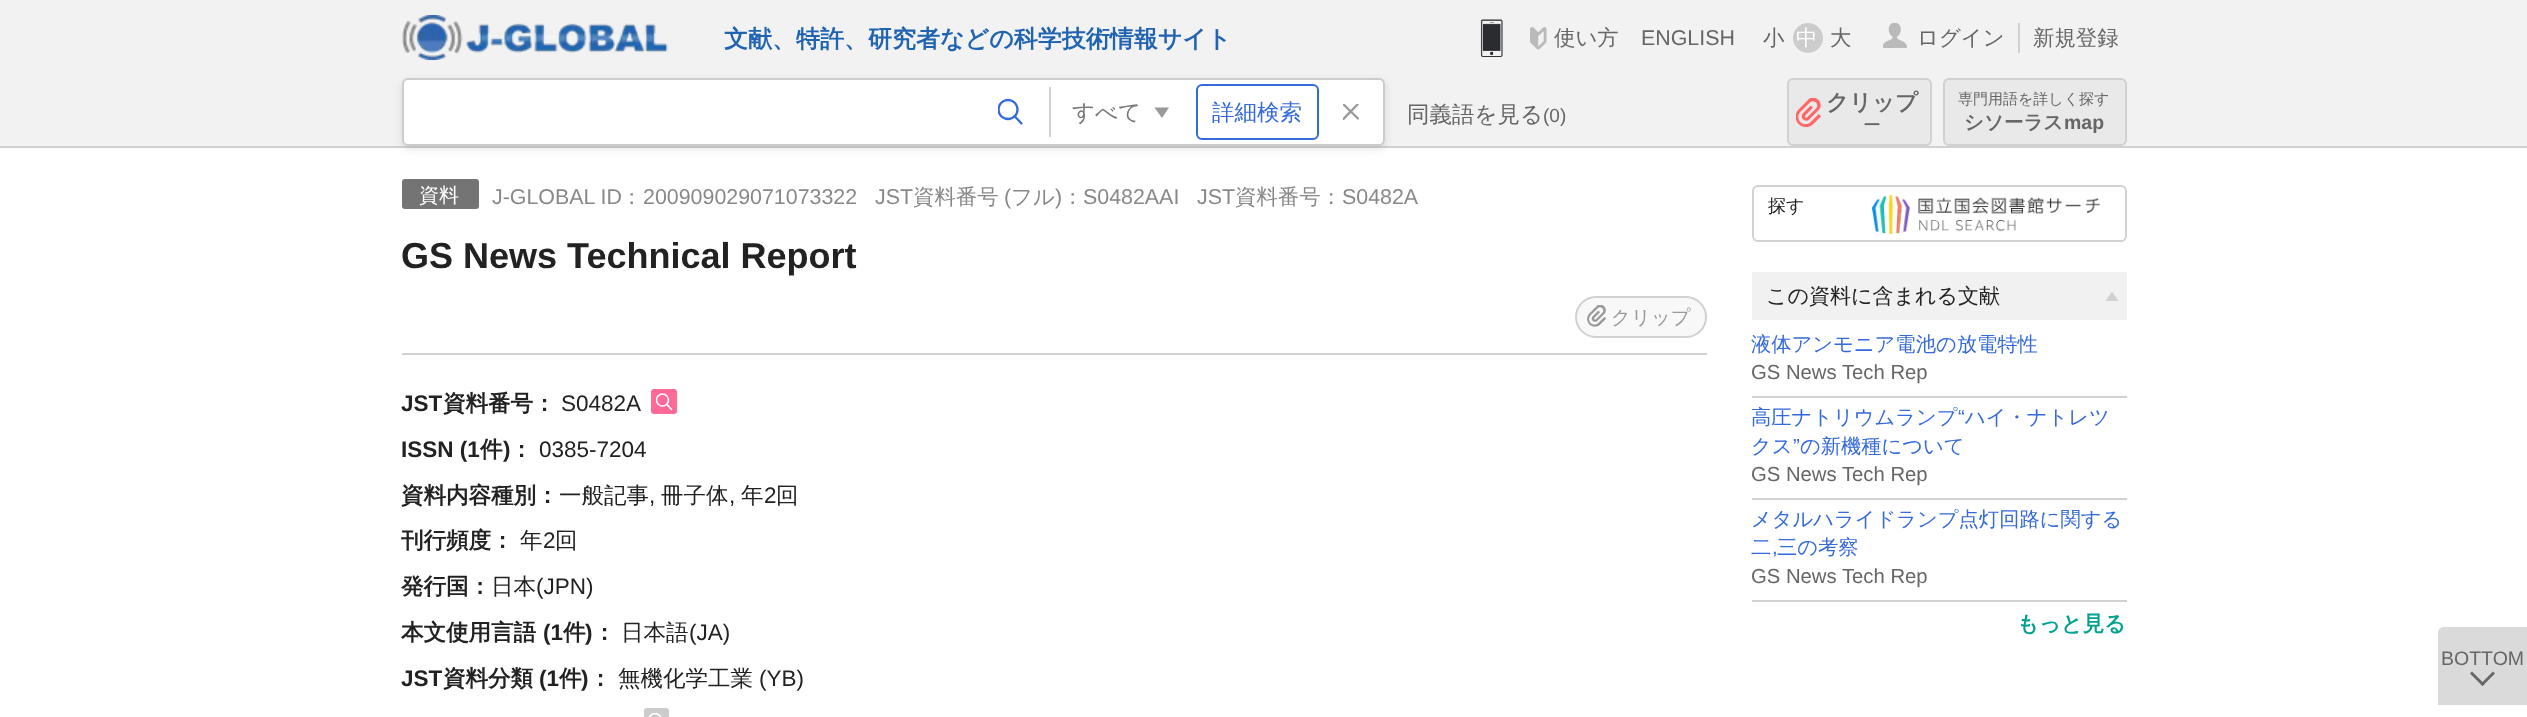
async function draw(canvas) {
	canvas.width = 2527;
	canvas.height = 717;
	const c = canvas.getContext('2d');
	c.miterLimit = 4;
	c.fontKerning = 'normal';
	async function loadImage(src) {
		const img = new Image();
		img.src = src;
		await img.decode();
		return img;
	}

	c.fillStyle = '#fff';
	c.fillRect(0, 0, 2527, 717);
	c.fillStyle = '#f2f2f2';
	c.fillRect(0, 0, 2527, 146);
	c.drawImage(await loadImage('img1.png'), 402, 15, 266, 45);
	c.font = 'bold 24px WenQuanYi Zen Hei';
	c.fillStyle = '#2064b1';
	c.fillText('文献、特許、研究者などの科学技術情報サイト', 724, 47);
	c.drawImage(await loadImage('img2.png'), 1480, 19, 23, 38);
	c.drawImage(await loadImage('img3.png'), 1530, 27, 17, 23);
	c.font = '500 21.4px WenQuanYi Zen Hei';
	c.fillStyle = '#666';
	c.fillText('使い方', 1554, 45);
	c.font = '21.4px Liberation Sans';
	c.fillText('ENGLISH', 1641, 45);
	c.font = '500 21.4px WenQuanYi Zen Hei';
	c.fillText('小', 1763, 45);
	c.fillStyle = '#ccc';
	c.beginPath();
	c.arc(1808, 38, 15, 0, 2 * Math.PI);
	c.fill();
	c.fillStyle = '#fff';
	c.fillText('中', 1796, 45);
	c.fillStyle = '#666';
	c.fillText('大', 1830, 45);
	c.drawImage(await loadImage('img4.png'), 1883, 23, 24, 25);
	c.fillStyle = '#d1d1d1';
	c.fillRect(2018, 23, 2, 30);
	c.fillStyle = '#666';
	c.fillText('ログイン', 1917, 45);
	c.fillText('新規登録', 2033, 45);
	c.fillStyle = '#d1d1d1';
	c.fillRect(0, 146, 2527, 2);
	c.fillStyle = '#0000001a';
	c.filter = 'blur(4px)';
	c.beginPath();
	c.roundRect(402, 81, 983, 68, 6);
	c.fill();
	c.filter = 'none';
	c.fillStyle = '#fff';
	c.beginPath();
	c.roundRect(403, 79, 981, 66, 5);
	c.fill();
	c.strokeStyle = '#ccc';
	c.lineWidth = 2;
	c.stroke();
	c.save();
	c.beginPath();
	c.rect(998, 99, 25, 26);
	c.clip();
	c.beginPath();
	c.arc(1008, 109.5, 9.5, 0, 2 * Math.PI);
	c.strokeStyle = '#346ad9';
	c.lineWidth = 2.3;
	c.stroke();
	c.restore();
	c.beginPath();
	c.moveTo(1014.5, 116);
	c.lineTo(1021.5, 123.5);
	c.strokeStyle = '#346ad9';
	c.lineWidth = 2.3;
	c.lineCap = 'round';
	c.lineJoin = 'round';
	c.stroke();
	c.fillStyle = '#999';
	c.beginPath();
	c.moveTo(1169, 107.5);
	c.lineTo(1162, 118);
	c.lineTo(1154.5, 107.5);
	c.closePath();
	c.fill();
	c.fillStyle = '#d1d1d1';
	c.fillRect(1049, 87, 2, 50);
	c.font = '500 22.5px WenQuanYi Zen Hei';
	c.fillStyle = '#777';
	c.fillText('すべて', 1072, 120);
	c.beginPath();
	c.roundRect(1197, 85, 121, 54, 5);
	c.lineWidth = 2;
	c.lineJoin = 'miter';
	c.stroke();
	c.fillStyle = '#346ad9';
	c.fillText('詳細検索', 1212, 120);
	c.save();
	c.beginPath();
	c.rect(1343, 104, 16, 16);
	c.clip();
	c.beginPath();
	c.moveTo(1343.5, 119);
	c.lineTo(1357.5, 104.5);
	c.moveTo(1343.5, 104.5);
	c.lineTo(1358, 118.5);
	c.strokeStyle = '#999';
	c.lineWidth = 2.3;
	c.lineJoin = 'round';
	c.stroke();
	c.restore();
	c.fillStyle = '#666';
	c.fillText('同義語を見る', 1407, 122);
	c.font = '19px Liberation Sans';
	c.fillText('(0)', 1543, 122);
	c.fillStyle = '#e9e9e9';
	c.beginPath();
	c.roundRect(1787, 78, 145, 68, 6);
	c.fill();
	c.drawImage(await loadImage('img5.png'), 1796, 98, 25, 30);
	c.beginPath();
	c.roundRect(1788, 79, 143, 66, 5);
	c.strokeStyle = '#d1d1d1';
	c.stroke();
	c.font = 'bold 22.5px WenQuanYi Zen Hei';
	c.fillStyle = '#666';
	c.fillText('クリップ', 1826, 110);
	c.font = '500 18px WenQuanYi Zen Hei';
	c.fillText('ー', 1863, 131);
	c.fillStyle = '#e9e9e9';
	c.beginPath();
	c.roundRect(1944, 79, 182, 66, 5);
	c.fill();
	c.stroke();
	c.font = '500 15px WenQuanYi Zen Hei';
	c.fillStyle = '#666';
	c.fillText('専門用語を詳しく探す', 1958, 104);
	c.font = 'bold 19.5px WenQuanYi Zen Hei';
	c.fillText('シソーラス', 1964, 129);
	c.font = 'bold 19.5px Liberation Sans';
	c.fillText('map', 2064, 129);
	c.fillStyle = '#d1d1d1';
	c.fillRect(402, 353, 1305, 2);
	c.fillStyle = '#747474';
	c.beginPath();
	c.roundRect(402, 179, 77, 30, 3);
	c.fill();
	c.font = '500 20px WenQuanYi Zen Hei';
	c.fillStyle = '#fff';
	c.fillText('資料', 419, 202);
	c.font = '21.4px Liberation Sans';
	c.fillStyle = '#888';
	c.fillText('J-GLOBAL ID', 492, 204);
	c.font = '500 21.4px WenQuanYi Zen Hei';
	c.fillText('：', 621, 204);
	c.font = '21.4px Liberation Sans';
	c.fillText('200909029071073322', 643, 204);
	c.fillText('JST', 875, 204);
	c.font = '500 21.4px WenQuanYi Zen Hei';
	c.fillText('資料番号', 913, 204);
	c.font = '21.4px Liberation Sans';
	c.fillText('(', 1004, 204);
	c.font = '500 21.4px WenQuanYi Zen Hei';
	c.fillText('フル', 1011, 204);
	c.font = '21.4px Liberation Sans';
	c.fillText(')', 1055, 204);
	c.font = '500 21.4px WenQuanYi Zen Hei';
	c.fillText('：', 1062, 204);
	c.font = '21.4px Liberation Sans';
	c.fillText('S0482AAI', 1083, 204);
	c.fillText('JST', 1197, 204);
	c.font = '500 21.4px WenQuanYi Zen Hei';
	c.fillText('資料番号：', 1235, 204);
	c.font = '21.4px Liberation Sans';
	c.fillText('S0482A', 1342, 204);
	c.font = 'bold 36px Liberation Sans';
	c.fillStyle = '#222';
	c.fillText('GS News Technical Report', 401, 268);
	c.fillStyle = '#f8f8f8';
	c.beginPath();
	c.roundRect(1575, 296, 132, 42, 21);
	c.fill();
	c.drawImage(await loadImage('img6.png'), 1587, 305, 19, 22);
	c.beginPath();
	c.roundRect(1576, 297, 130, 40, 20);
	c.stroke();
	c.font = '500 19.5px WenQuanYi Zen Hei';
	c.fillStyle = '#999';
	c.fillText('クリップ', 1611, 324);
	c.font = 'bold 22.5px Liberation Sans';
	c.fillStyle = '#222';
	c.fillText('JST', 401, 411);
	c.font = 'bold 22.5px WenQuanYi Zen Hei';
	c.fillText('資料番号：', 443, 411);
	c.font = '22.5px Liberation Sans';
	c.fillText('S0482A', 561, 411);
	c.fillStyle = '#ff6997';
	c.beginPath();
	c.roundRect(651, 389, 26, 25, 3);
	c.fill();
	c.save();
	c.beginPath();
	c.rect(656, 393, 16, 17);
	c.clip();
	c.beginPath();
	c.arc(662.5, 400, 6, 0, 2 * Math.PI);
	c.strokeStyle = '#fff';
	c.lineWidth = 1.6;
	c.stroke();
	c.restore();
	c.beginPath();
	c.moveTo(667, 404.5);
	c.lineTo(671.5, 409.5);
	c.strokeStyle = '#fff';
	c.lineWidth = 1.6;
	c.lineJoin = 'round';
	c.stroke();
	c.font = 'bold 22.5px Liberation Sans';
	c.fillStyle = '#222';
	c.fillText('ISSN (1', 401, 457);
	c.font = 'bold 22.5px WenQuanYi Zen Hei';
	c.fillText('件', 480, 457);
	c.font = 'bold 22.5px Liberation Sans';
	c.fillText(')', 503, 457);
	c.font = 'bold 22.5px WenQuanYi Zen Hei';
	c.fillText('：', 510, 457);
	c.font = '22.5px Liberation Sans';
	c.fillText('0385-7204', 539, 457);
	c.font = 'bold 22.5px WenQuanYi Zen Hei';
	c.fillText('資料内容種別：', 401, 503);
	c.font = '500 22.5px WenQuanYi Zen Hei';
	c.fillText('一般記事', 559, 503);
	c.font = '22.5px Liberation Sans';
	c.fillText(',', 649, 503);
	c.font = '500 22.5px WenQuanYi Zen Hei';
	c.fillText('冊子体', 661, 503);
	c.font = '22.5px Liberation Sans';
	c.fillText(',', 729, 503);
	c.font = '500 22.5px WenQuanYi Zen Hei';
	c.fillText('年', 741, 503);
	c.font = '22.5px Liberation Sans';
	c.fillText('2', 764, 503);
	c.font = '500 22.5px WenQuanYi Zen Hei';
	c.fillText('回', 776, 503);
	c.font = 'bold 22.5px WenQuanYi Zen Hei';
	c.fillText('刊行頻度：', 401, 548);
	c.font = '500 22.5px WenQuanYi Zen Hei';
	c.fillText('年', 520, 548);
	c.font = '22.5px Liberation Sans';
	c.fillText('2', 543, 548);
	c.font = '500 22.5px WenQuanYi Zen Hei';
	c.fillText('回', 555, 548);
	c.font = 'bold 22.5px WenQuanYi Zen Hei';
	c.fillText('発行国：', 401, 594);
	c.font = '500 22.5px WenQuanYi Zen Hei';
	c.fillText('日本', 491, 594);
	c.font = '22.5px Liberation Sans';
	c.fillText('(JPN)', 536, 594);
	c.font = 'bold 22.5px WenQuanYi Zen Hei';
	c.fillText('本文使用言語', 401, 640);
	c.font = 'bold 22.5px Liberation Sans';
	c.fillText('(1', 543, 640);
	c.font = 'bold 22.5px WenQuanYi Zen Hei';
	c.fillText('件', 563, 640);
	c.font = 'bold 22.5px Liberation Sans';
	c.fillText(')', 585, 640);
	c.font = 'bold 22.5px WenQuanYi Zen Hei';
	c.fillText('：', 593, 640);
	c.font = '500 22.5px WenQuanYi Zen Hei';
	c.fillText('日本語', 621, 640);
	c.font = '22.5px Liberation Sans';
	c.fillText('(JA)', 689, 640);
	c.font = 'bold 22.5px Liberation Sans';
	c.fillText('JST', 401, 686);
	c.font = 'bold 22.5px WenQuanYi Zen Hei';
	c.fillText('資料分類', 443, 686);
	c.font = 'bold 22.5px Liberation Sans';
	c.fillText('(1', 539, 686);
	c.font = 'bold 22.5px WenQuanYi Zen Hei';
	c.fillText('件', 559, 686);
	c.font = 'bold 22.5px Liberation Sans';
	c.fillText(')', 581, 686);
	c.font = 'bold 22.5px WenQuanYi Zen Hei';
	c.fillText('：', 589, 686);
	c.font = '500 22.5px WenQuanYi Zen Hei';
	c.fillText('無機化学工業', 618, 686);
	c.font = '22.5px Liberation Sans';
	c.fillText('(YB)', 759, 686);
	c.fillStyle = '#ccc';
	c.beginPath();
	c.roundRect(644, 708, 25, 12, 3);
	c.fill();
	c.save();
	c.beginPath();
	c.rect(648, 713, 17, 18);
	c.clip();
	c.beginPath();
	c.arc(655, 719.5, 6, 0, 2 * Math.PI);
	c.stroke();
	c.restore();
	c.beginPath();
	c.roundRect(1753, 186, 373, 55, 5);
	c.strokeStyle = '#d1d1d1';
	c.lineWidth = 2;
	c.lineJoin = 'miter';
	c.stroke();
	c.font = '500 18px WenQuanYi Zen Hei';
	c.fillStyle = '#222';
	c.fillText('探す', 1768, 212);
	c.drawImage(await loadImage('img7.png'), 1872, 195, 228, 39);
	c.fillStyle = '#f1f1f1';
	c.fillRect(1752, 272, 375, 48);
	c.fillStyle = '#d1d1d1';
	c.beginPath();
	c.moveTo(2105.5, 301);
	c.lineTo(2112, 291.5);
	c.lineTo(2118.5, 301);
	c.closePath();
	c.fill();
	c.font = '500 21px WenQuanYi Zen Hei';
	c.fillStyle = '#222';
	c.fillText('この資料に含まれる文献', 1766, 303);
	c.fillStyle = '#d1d1d1';
	c.fillRect(1752, 396, 375, 2);
	c.font = '500 20.3px WenQuanYi Zen Hei';
	c.fillStyle = '#346ad9';
	c.fillText('液体アンモニア電池の放電特性', 1751, 351);
	c.font = '20.3px Liberation Sans';
	c.fillStyle = '#666';
	c.fillText('GS News Tech Rep', 1751, 379);
	c.fillStyle = '#d1d1d1';
	c.fillRect(1752, 498, 375, 2);
	c.font = '500 20.3px WenQuanYi Zen Hei';
	c.fillStyle = '#346ad9';
	c.fillText('高圧ナトリウムランプ', 1751, 424);
	c.font = '20.3px Liberation Sans';
	c.fillText('“', 1958, 424);
	c.font = '500 20.3px WenQuanYi Zen Hei';
	c.fillText('ハイ・ナトレツ', 1965, 424);
	c.fillText('クス', 1751, 453);
	c.font = '20.3px Liberation Sans';
	c.fillText('”', 1793, 453);
	c.font = '500 20.3px WenQuanYi Zen Hei';
	c.fillText('の新機種について', 1800, 453);
	c.font = '20.3px Liberation Sans';
	c.fillStyle = '#666';
	c.fillText('GS News Tech Rep', 1751, 481);
	c.fillStyle = '#d1d1d1';
	c.fillRect(1752, 600, 375, 2);
	c.font = '500 20.3px WenQuanYi Zen Hei';
	c.fillStyle = '#346ad9';
	c.fillText('メタルハライドランプ点灯回路に関する', 1751, 526);
	c.fillText('二', 1751, 554);
	c.font = '20.3px Liberation Sans';
	c.fillText(',', 1772, 554);
	c.font = '500 20.3px WenQuanYi Zen Hei';
	c.fillText('三の考察', 1777, 554);
	c.font = '20.3px Liberation Sans';
	c.fillStyle = '#666';
	c.fillText('GS News Tech Rep', 1751, 583);
	c.font = 'bold 21.4px WenQuanYi Zen Hei';
	c.fillStyle = '#02a28f';
	c.fillText('もっと見る', 2017, 631);
	c.fillStyle = '#dadada';
	c.beginPath();
	c.moveTo(2444, 627);
	c.lineTo(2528, 627);
	c.lineTo(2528, 705);
	c.lineTo(2438, 705);
	c.lineTo(2438, 633);
	c.bezierCurveTo(2438, 629.5, 2440.5, 627, 2444, 627);
	c.closePath();
	c.fill();
	c.font = '19.5px Liberation Sans';
	c.fillStyle = '#666';
	c.fillText('BOTTOM', 2441, 665);
	c.beginPath();
	c.moveTo(2480.5, 684);
	c.lineTo(2493, 671.5);
	c.lineTo(2495, 673.5);
	c.lineTo(2482.5, 686);
	c.closePath();
	c.fill();
	c.beginPath();
	c.moveTo(2470, 673.5);
	c.lineTo(2472, 671.5);
	c.lineTo(2484.5, 684);
	c.lineTo(2482.5, 686);
	c.closePath();
	c.fill();
}

draw(document.querySelector('canvas'));
